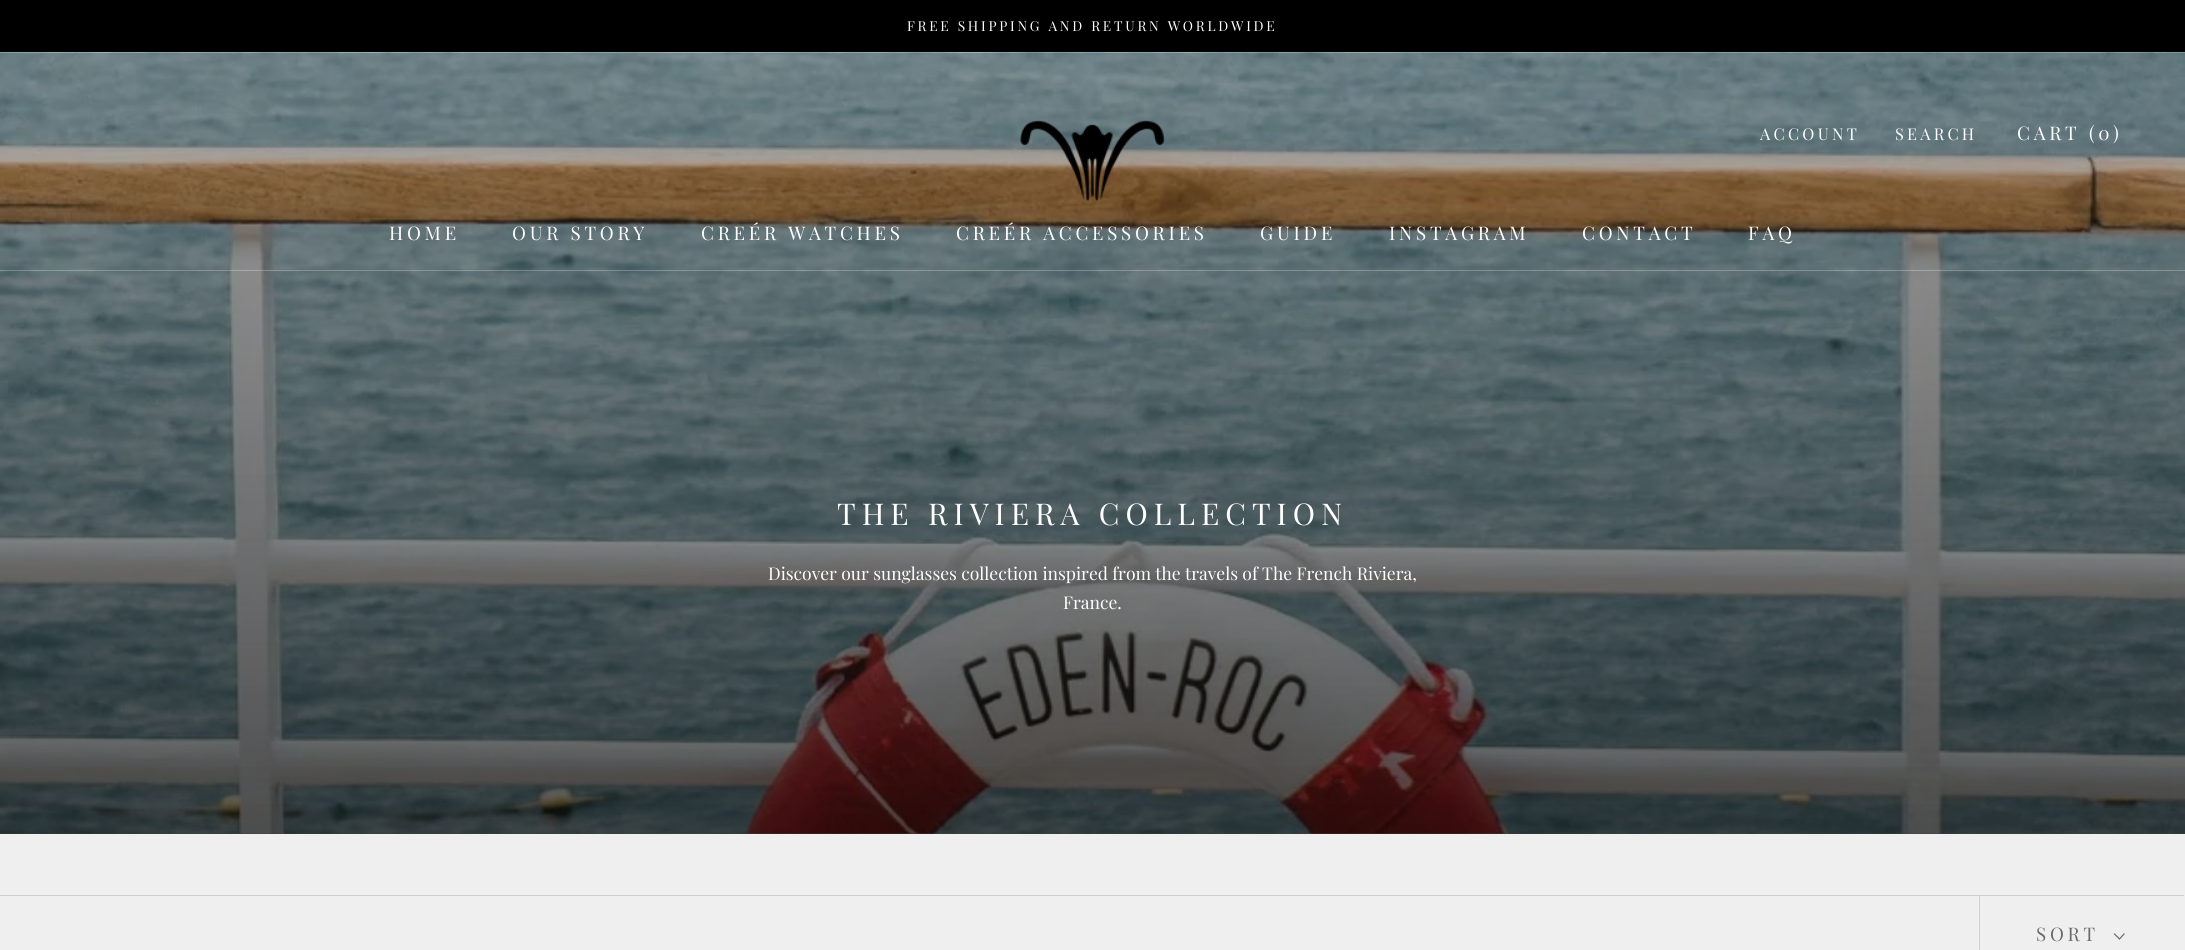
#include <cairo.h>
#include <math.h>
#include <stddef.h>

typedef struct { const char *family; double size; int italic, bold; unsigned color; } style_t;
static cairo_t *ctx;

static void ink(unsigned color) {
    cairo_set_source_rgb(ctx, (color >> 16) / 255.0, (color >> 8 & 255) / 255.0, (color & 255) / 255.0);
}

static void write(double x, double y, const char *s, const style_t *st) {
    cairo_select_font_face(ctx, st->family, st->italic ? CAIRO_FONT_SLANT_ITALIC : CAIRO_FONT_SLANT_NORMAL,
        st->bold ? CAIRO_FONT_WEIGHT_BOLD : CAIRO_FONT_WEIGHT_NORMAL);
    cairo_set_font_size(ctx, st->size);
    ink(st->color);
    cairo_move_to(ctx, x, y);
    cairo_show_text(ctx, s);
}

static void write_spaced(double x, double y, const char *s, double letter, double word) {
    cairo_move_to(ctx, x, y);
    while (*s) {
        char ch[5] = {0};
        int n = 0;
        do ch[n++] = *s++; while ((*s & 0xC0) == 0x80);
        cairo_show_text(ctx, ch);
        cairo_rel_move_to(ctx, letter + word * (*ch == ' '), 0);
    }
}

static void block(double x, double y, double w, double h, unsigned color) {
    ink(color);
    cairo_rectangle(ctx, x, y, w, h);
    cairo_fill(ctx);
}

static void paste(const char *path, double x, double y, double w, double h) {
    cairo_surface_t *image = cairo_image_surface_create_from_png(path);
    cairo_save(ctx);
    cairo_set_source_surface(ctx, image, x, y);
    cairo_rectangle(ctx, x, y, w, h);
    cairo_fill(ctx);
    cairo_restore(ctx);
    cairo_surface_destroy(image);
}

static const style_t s1 = {"Playfair Display", 17.5, 0, 0, 0xffffff};

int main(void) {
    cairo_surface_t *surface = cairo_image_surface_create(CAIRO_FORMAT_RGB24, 2185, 950);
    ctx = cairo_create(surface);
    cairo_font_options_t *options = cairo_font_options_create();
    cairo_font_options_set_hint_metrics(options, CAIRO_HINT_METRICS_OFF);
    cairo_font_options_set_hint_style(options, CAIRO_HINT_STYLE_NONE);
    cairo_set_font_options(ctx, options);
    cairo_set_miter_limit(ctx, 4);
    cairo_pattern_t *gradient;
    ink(0xefefef);
    cairo_paint(ctx);
    block(0, 0, 2185, 52, 0x000000);
    cairo_select_font_face(ctx, "Playfair Display", CAIRO_FONT_SLANT_NORMAL, CAIRO_FONT_WEIGHT_NORMAL);
    cairo_set_font_size(ctx, 13.75);
    ink(0xffffff);
    write_spaced(907, 31, "FREE SHIPPING AND RETURN WORLDWIDE", 2.75, 0);
    block(0, 833, 2185, 1, 0xaeb7bb);
    paste("pic2.png", 0, 52, 2185, 782);
    gradient = cairo_pattern_create_linear(1093, 834, 1093, -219);
    cairo_pattern_add_color_stop_rgba(gradient, 0, 0.016, 0.016, 0.016, 0.65);
    cairo_pattern_add_color_stop_rgba(gradient, 1, 0.212, 0.212, 0.212, 0.2);
    cairo_set_source(ctx, gradient);
    cairo_pattern_destroy(gradient);
    cairo_rectangle(ctx, 0, 53, 2185, 781);
    cairo_fill(ctx);
    cairo_set_source_rgba(ctx, 1, 1, 1, 0.25);
    cairo_rectangle(ctx, 0, 270, 2185, 1);
    cairo_fill(ctx);
    paste("pic1.png", 1020, 120, 145, 82);
    cairo_set_font_size(ctx, 16.25);
    ink(0xffffff);
    write_spaced(1760, 140, "ACCOUNT", 3.25, 0);
    write_spaced(1895, 140, "SEARCH", 3.25, 0);
    cairo_set_font_size(ctx, 18.75);
    write_spaced(2017, 140, "CART (0)", 3.75, 0);
    write_spaced(389, 240, "HOME", 3.75, 0);
    write_spaced(512, 240, "OUR STORY", 3.75, 0);
    write_spaced(701, 240, "CREÉR WATCHES", 3.75, 0);
    write_spaced(956, 240, "CREÉR ACCESSORIES", 3.75, 0);
    write_spaced(1260, 240, "GUIDE", 3.75, 0);
    write_spaced(1389, 240, "INSTAGRAM", 3.75, 0);
    write_spaced(1582, 240, "CONTACT", 3.75, 0);
    write_spaced(1748, 240, "FAQ", 3.75, 0);
    cairo_set_font_size(ctx, 30);
    write_spaced(837, 525, "THE RIVIERA COLLECTION", 6, 0);
    write(768, 580, "Discover our sunglasses collection inspired from the travels of The French Riviera,", &s1);
    write(1063, 609, "France.", &s1);
    ink(0xcfcfcf);
    cairo_new_path(ctx);
    cairo_move_to(ctx, -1, 895);
    cairo_line_to(ctx, -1, 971);
    cairo_line_to(ctx, 0, 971);
    cairo_line_to(ctx, 0, 896);
    cairo_line_to(ctx, 2184, 896);
    cairo_line_to(ctx, 2184, 895);
    cairo_close_path(ctx);
    cairo_fill(ctx);
    block(1979, 896, 1, 54, 0xcfcfcf);
    cairo_set_font_size(ctx, 18.75);
    ink(0x6a6a6a);
    write_spaced(2036, 941, "SORT", 3.75, 0);
    cairo_new_path(ctx);
    cairo_move_to(ctx, 2124, 934);
    cairo_line_to(ctx, 2119.5, 939);
    cairo_line_to(ctx, 2114.5, 934);
    cairo_set_line_width(ctx, 1.2);
    cairo_set_line_cap(ctx, CAIRO_LINE_CAP_SQUARE);
    cairo_stroke(ctx);
    cairo_surface_write_to_png(surface, "screenshot.png");
    cairo_font_options_destroy(options);
    cairo_destroy(ctx);
    cairo_surface_destroy(surface);
    return 0;
}
